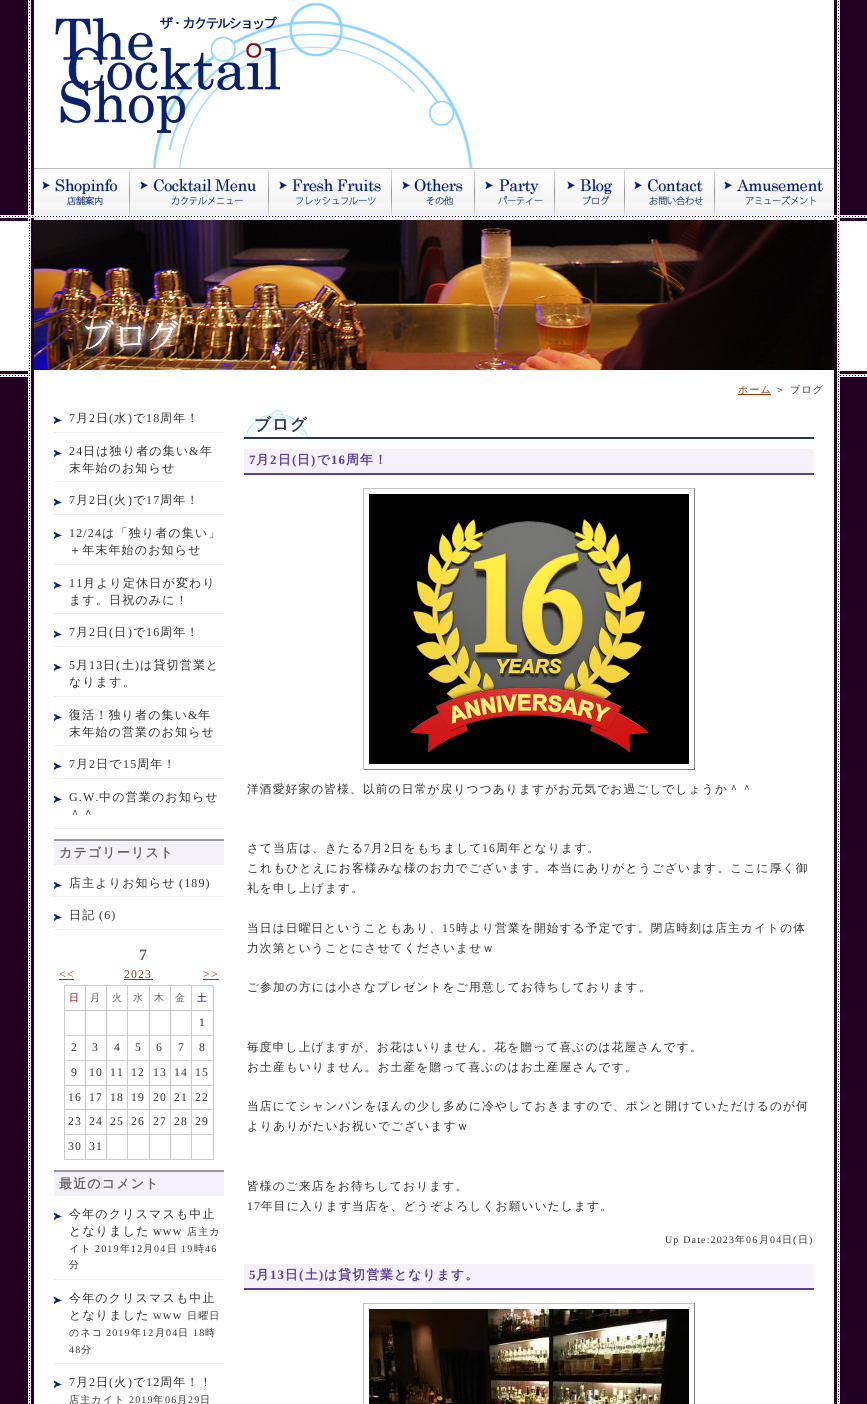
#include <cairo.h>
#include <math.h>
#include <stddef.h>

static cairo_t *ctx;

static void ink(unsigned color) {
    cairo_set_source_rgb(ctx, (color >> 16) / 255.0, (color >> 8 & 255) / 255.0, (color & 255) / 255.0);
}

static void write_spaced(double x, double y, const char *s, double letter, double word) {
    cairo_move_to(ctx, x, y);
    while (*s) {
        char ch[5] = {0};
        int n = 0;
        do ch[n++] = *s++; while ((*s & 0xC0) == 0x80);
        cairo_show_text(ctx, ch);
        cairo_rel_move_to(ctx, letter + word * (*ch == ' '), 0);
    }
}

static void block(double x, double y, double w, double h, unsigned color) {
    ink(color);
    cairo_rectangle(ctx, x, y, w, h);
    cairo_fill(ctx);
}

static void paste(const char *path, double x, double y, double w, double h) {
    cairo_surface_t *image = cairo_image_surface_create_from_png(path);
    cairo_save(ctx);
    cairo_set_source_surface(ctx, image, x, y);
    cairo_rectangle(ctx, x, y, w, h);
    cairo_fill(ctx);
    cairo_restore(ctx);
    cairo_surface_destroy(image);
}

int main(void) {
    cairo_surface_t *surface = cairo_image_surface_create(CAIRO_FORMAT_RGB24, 867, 1404);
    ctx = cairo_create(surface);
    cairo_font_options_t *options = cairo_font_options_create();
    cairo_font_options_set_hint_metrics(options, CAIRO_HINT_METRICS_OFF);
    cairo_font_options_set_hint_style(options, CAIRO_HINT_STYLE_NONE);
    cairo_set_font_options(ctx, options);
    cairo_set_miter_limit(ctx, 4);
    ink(0x220022);
    cairo_paint(ctx);
    paste("pic1.png", 0, 215, 867, 162);
    paste("pic2.png", 28, 0, 812, 1404);
    paste("pic3.png", 28, 1, 812, 219);
    paste("pic4.png", 55, 3, 418, 165);
    paste("pic5.png", 34, 168, 96, 48);
    paste("pic6.png", 130, 168, 139, 48);
    paste("pic7.png", 269, 168, 123, 48);
    paste("pic8.png", 392, 168, 83, 48);
    paste("pic9.png", 475, 168, 80, 48);
    paste("pic10.png", 555, 168, 70, 48);
    paste("pic11.png", 625, 168, 90, 48);
    paste("pic12.png", 715, 168, 119, 48);
    paste("pic13.png", 34, 220, 800, 150);
    cairo_select_font_face(ctx, "WenQuanYi Zen Hei Medium", CAIRO_FONT_SLANT_NORMAL, CAIRO_FONT_WEIGHT_NORMAL);
    cairo_set_font_size(ctx, 10);
    ink(0x993300);
    write_spaced(738, 393, "ホーム", 1.15, 0);
    block(738, 394, 33, 1, 0x993300);
    ink(0x333333);
    write_spaced(775, 393, "＞", 1.15, 0);
    write_spaced(790, 393, "ブログ", 1.15, 0);
    paste("pic14.png", 54, 417, 8, 7);
    block(54, 432, 170, 1, 0xefefef);
    cairo_select_font_face(ctx, "Liberation Serif", CAIRO_FONT_SLANT_NORMAL, CAIRO_FONT_WEIGHT_NORMAL);
    cairo_set_font_size(ctx, 12);
    ink(0x333333);
    write_spaced(69, 422, "7", 1.15, 0);
    cairo_select_font_face(ctx, "WenQuanYi Zen Hei Medium", CAIRO_FONT_SLANT_NORMAL, CAIRO_FONT_WEIGHT_NORMAL);
    write_spaced(76, 422, "月", 1.15, 0);
    cairo_select_font_face(ctx, "Liberation Serif", CAIRO_FONT_SLANT_NORMAL, CAIRO_FONT_WEIGHT_NORMAL);
    write_spaced(89, 422, "2", 1.15, 0);
    cairo_select_font_face(ctx, "WenQuanYi Zen Hei Medium", CAIRO_FONT_SLANT_NORMAL, CAIRO_FONT_WEIGHT_NORMAL);
    write_spaced(96, 422, "日", 1.15, 0);
    cairo_select_font_face(ctx, "Liberation Serif", CAIRO_FONT_SLANT_NORMAL, CAIRO_FONT_WEIGHT_NORMAL);
    write_spaced(109, 422, "(", 1.15, 0);
    cairo_select_font_face(ctx, "WenQuanYi Zen Hei Medium", CAIRO_FONT_SLANT_NORMAL, CAIRO_FONT_WEIGHT_NORMAL);
    write_spaced(114, 422, "水", 1.15, 0);
    cairo_select_font_face(ctx, "Liberation Serif", CAIRO_FONT_SLANT_NORMAL, CAIRO_FONT_WEIGHT_NORMAL);
    write_spaced(128, 422, ")", 1.15, 0);
    cairo_select_font_face(ctx, "WenQuanYi Zen Hei Medium", CAIRO_FONT_SLANT_NORMAL, CAIRO_FONT_WEIGHT_NORMAL);
    write_spaced(133, 422, "で", 1.15, 0);
    cairo_select_font_face(ctx, "Liberation Serif", CAIRO_FONT_SLANT_NORMAL, CAIRO_FONT_WEIGHT_NORMAL);
    write_spaced(146, 422, "18", 1.15, 0);
    cairo_select_font_face(ctx, "WenQuanYi Zen Hei Medium", CAIRO_FONT_SLANT_NORMAL, CAIRO_FONT_WEIGHT_NORMAL);
    write_spaced(160, 422, "周年！", 1.15, 0);
    paste("pic14.png", 54, 450, 8, 7);
    block(54, 481, 170, 1, 0xefefef);
    cairo_select_font_face(ctx, "Liberation Serif", CAIRO_FONT_SLANT_NORMAL, CAIRO_FONT_WEIGHT_NORMAL);
    ink(0x333333);
    write_spaced(69, 455, "24", 1.15, 0);
    cairo_select_font_face(ctx, "WenQuanYi Zen Hei Medium", CAIRO_FONT_SLANT_NORMAL, CAIRO_FONT_WEIGHT_NORMAL);
    write_spaced(83, 455, "日は独り者の集い", 1.15, 0);
    cairo_select_font_face(ctx, "Liberation Serif", CAIRO_FONT_SLANT_NORMAL, CAIRO_FONT_WEIGHT_NORMAL);
    write_spaced(189, 455, "&", 1.15, 0);
    cairo_select_font_face(ctx, "WenQuanYi Zen Hei Medium", CAIRO_FONT_SLANT_NORMAL, CAIRO_FONT_WEIGHT_NORMAL);
    write_spaced(200, 455, "年", 1.15, 0);
    write_spaced(69, 472, "末年始のお知らせ", 1.15, 0);
    paste("pic14.png", 54, 499, 8, 7);
    block(54, 514, 170, 1, 0xefefef);
    cairo_select_font_face(ctx, "Liberation Serif", CAIRO_FONT_SLANT_NORMAL, CAIRO_FONT_WEIGHT_NORMAL);
    ink(0x333333);
    write_spaced(69, 504, "7", 1.15, 0);
    cairo_select_font_face(ctx, "WenQuanYi Zen Hei Medium", CAIRO_FONT_SLANT_NORMAL, CAIRO_FONT_WEIGHT_NORMAL);
    write_spaced(76, 504, "月", 1.15, 0);
    cairo_select_font_face(ctx, "Liberation Serif", CAIRO_FONT_SLANT_NORMAL, CAIRO_FONT_WEIGHT_NORMAL);
    write_spaced(89, 504, "2", 1.15, 0);
    cairo_select_font_face(ctx, "WenQuanYi Zen Hei Medium", CAIRO_FONT_SLANT_NORMAL, CAIRO_FONT_WEIGHT_NORMAL);
    write_spaced(96, 504, "日", 1.15, 0);
    cairo_select_font_face(ctx, "Liberation Serif", CAIRO_FONT_SLANT_NORMAL, CAIRO_FONT_WEIGHT_NORMAL);
    write_spaced(109, 504, "(", 1.15, 0);
    cairo_select_font_face(ctx, "WenQuanYi Zen Hei Medium", CAIRO_FONT_SLANT_NORMAL, CAIRO_FONT_WEIGHT_NORMAL);
    write_spaced(114, 504, "火", 1.15, 0);
    cairo_select_font_face(ctx, "Liberation Serif", CAIRO_FONT_SLANT_NORMAL, CAIRO_FONT_WEIGHT_NORMAL);
    write_spaced(128, 504, ")", 1.15, 0);
    cairo_select_font_face(ctx, "WenQuanYi Zen Hei Medium", CAIRO_FONT_SLANT_NORMAL, CAIRO_FONT_WEIGHT_NORMAL);
    write_spaced(133, 504, "で", 1.15, 0);
    cairo_select_font_face(ctx, "Liberation Serif", CAIRO_FONT_SLANT_NORMAL, CAIRO_FONT_WEIGHT_NORMAL);
    write_spaced(146, 504, "17", 1.15, 0);
    cairo_select_font_face(ctx, "WenQuanYi Zen Hei Medium", CAIRO_FONT_SLANT_NORMAL, CAIRO_FONT_WEIGHT_NORMAL);
    write_spaced(160, 504, "周年！", 1.15, 0);
    paste("pic14.png", 54, 532, 8, 7);
    block(54, 564, 170, 1, 0xefefef);
    cairo_select_font_face(ctx, "Liberation Serif", CAIRO_FONT_SLANT_NORMAL, CAIRO_FONT_WEIGHT_NORMAL);
    ink(0x333333);
    write_spaced(69, 537, "12/24", 1.15, 0);
    cairo_select_font_face(ctx, "WenQuanYi Zen Hei Medium", CAIRO_FONT_SLANT_NORMAL, CAIRO_FONT_WEIGHT_NORMAL);
    write_spaced(102, 537, "は「独り者の集い」", 1.15, 0);
    write_spaced(69, 554, "＋年末年始のお知らせ", 1.15, 0);
    paste("pic14.png", 54, 582, 8, 7);
    block(54, 613, 170, 1, 0xefefef);
    cairo_select_font_face(ctx, "Liberation Serif", CAIRO_FONT_SLANT_NORMAL, CAIRO_FONT_WEIGHT_NORMAL);
    ink(0x333333);
    write_spaced(69, 587, "11", 1.15, 0);
    cairo_select_font_face(ctx, "WenQuanYi Zen Hei Medium", CAIRO_FONT_SLANT_NORMAL, CAIRO_FONT_WEIGHT_NORMAL);
    write_spaced(83, 587, "月より定休日が変わり", 1.15, 0);
    write_spaced(69, 604, "ます。日祝のみに！", 1.15, 0);
    paste("pic14.png", 54, 631, 8, 7);
    block(54, 646, 170, 1, 0xefefef);
    cairo_select_font_face(ctx, "Liberation Serif", CAIRO_FONT_SLANT_NORMAL, CAIRO_FONT_WEIGHT_NORMAL);
    ink(0x333333);
    write_spaced(69, 636, "7", 1.15, 0);
    cairo_select_font_face(ctx, "WenQuanYi Zen Hei Medium", CAIRO_FONT_SLANT_NORMAL, CAIRO_FONT_WEIGHT_NORMAL);
    write_spaced(76, 636, "月", 1.15, 0);
    cairo_select_font_face(ctx, "Liberation Serif", CAIRO_FONT_SLANT_NORMAL, CAIRO_FONT_WEIGHT_NORMAL);
    write_spaced(89, 636, "2", 1.15, 0);
    cairo_select_font_face(ctx, "WenQuanYi Zen Hei Medium", CAIRO_FONT_SLANT_NORMAL, CAIRO_FONT_WEIGHT_NORMAL);
    write_spaced(96, 636, "日", 1.15, 0);
    cairo_select_font_face(ctx, "Liberation Serif", CAIRO_FONT_SLANT_NORMAL, CAIRO_FONT_WEIGHT_NORMAL);
    write_spaced(109, 636, "(", 1.15, 0);
    cairo_select_font_face(ctx, "WenQuanYi Zen Hei Medium", CAIRO_FONT_SLANT_NORMAL, CAIRO_FONT_WEIGHT_NORMAL);
    write_spaced(114, 636, "日", 1.15, 0);
    cairo_select_font_face(ctx, "Liberation Serif", CAIRO_FONT_SLANT_NORMAL, CAIRO_FONT_WEIGHT_NORMAL);
    write_spaced(128, 636, ")", 1.15, 0);
    cairo_select_font_face(ctx, "WenQuanYi Zen Hei Medium", CAIRO_FONT_SLANT_NORMAL, CAIRO_FONT_WEIGHT_NORMAL);
    write_spaced(133, 636, "で", 1.15, 0);
    cairo_select_font_face(ctx, "Liberation Serif", CAIRO_FONT_SLANT_NORMAL, CAIRO_FONT_WEIGHT_NORMAL);
    write_spaced(146, 636, "16", 1.15, 0);
    cairo_select_font_face(ctx, "WenQuanYi Zen Hei Medium", CAIRO_FONT_SLANT_NORMAL, CAIRO_FONT_WEIGHT_NORMAL);
    write_spaced(160, 636, "周年！", 1.15, 0);
    paste("pic14.png", 54, 664, 8, 7);
    block(54, 696, 170, 1, 0xefefef);
    cairo_select_font_face(ctx, "Liberation Serif", CAIRO_FONT_SLANT_NORMAL, CAIRO_FONT_WEIGHT_NORMAL);
    ink(0x333333);
    write_spaced(69, 669, "5", 1.15, 0);
    cairo_select_font_face(ctx, "WenQuanYi Zen Hei Medium", CAIRO_FONT_SLANT_NORMAL, CAIRO_FONT_WEIGHT_NORMAL);
    write_spaced(76, 669, "月", 1.15, 0);
    cairo_select_font_face(ctx, "Liberation Serif", CAIRO_FONT_SLANT_NORMAL, CAIRO_FONT_WEIGHT_NORMAL);
    write_spaced(89, 669, "13", 1.15, 0);
    cairo_select_font_face(ctx, "WenQuanYi Zen Hei Medium", CAIRO_FONT_SLANT_NORMAL, CAIRO_FONT_WEIGHT_NORMAL);
    write_spaced(103, 669, "日", 1.15, 0);
    cairo_select_font_face(ctx, "Liberation Serif", CAIRO_FONT_SLANT_NORMAL, CAIRO_FONT_WEIGHT_NORMAL);
    write_spaced(116, 669, "(", 1.15, 0);
    cairo_select_font_face(ctx, "WenQuanYi Zen Hei Medium", CAIRO_FONT_SLANT_NORMAL, CAIRO_FONT_WEIGHT_NORMAL);
    write_spaced(122, 669, "土", 1.15, 0);
    cairo_select_font_face(ctx, "Liberation Serif", CAIRO_FONT_SLANT_NORMAL, CAIRO_FONT_WEIGHT_NORMAL);
    write_spaced(135, 669, ")", 1.15, 0);
    cairo_select_font_face(ctx, "WenQuanYi Zen Hei Medium", CAIRO_FONT_SLANT_NORMAL, CAIRO_FONT_WEIGHT_NORMAL);
    write_spaced(140, 669, "は貸切営業と", 1.15, 0);
    write_spaced(69, 686, "なります。", 1.15, 0);
    paste("pic14.png", 54, 714, 8, 7);
    block(54, 745, 170, 1, 0xefefef);
    ink(0x333333);
    write_spaced(69, 719, "復活！独り者の集い", 1.15, 0);
    cairo_select_font_face(ctx, "Liberation Serif", CAIRO_FONT_SLANT_NORMAL, CAIRO_FONT_WEIGHT_NORMAL);
    write_spaced(188, 719, "&", 1.15, 0);
    cairo_select_font_face(ctx, "WenQuanYi Zen Hei Medium", CAIRO_FONT_SLANT_NORMAL, CAIRO_FONT_WEIGHT_NORMAL);
    write_spaced(198, 719, "年", 1.15, 0);
    write_spaced(69, 736, "末年始の営業のお知らせ", 1.15, 0);
    paste("pic14.png", 54, 763, 8, 7);
    block(54, 778, 170, 1, 0xefefef);
    cairo_select_font_face(ctx, "Liberation Serif", CAIRO_FONT_SLANT_NORMAL, CAIRO_FONT_WEIGHT_NORMAL);
    ink(0x333333);
    write_spaced(69, 768, "7", 1.15, 0);
    cairo_select_font_face(ctx, "WenQuanYi Zen Hei Medium", CAIRO_FONT_SLANT_NORMAL, CAIRO_FONT_WEIGHT_NORMAL);
    write_spaced(76, 768, "月", 1.15, 0);
    cairo_select_font_face(ctx, "Liberation Serif", CAIRO_FONT_SLANT_NORMAL, CAIRO_FONT_WEIGHT_NORMAL);
    write_spaced(89, 768, "2", 1.15, 0);
    cairo_select_font_face(ctx, "WenQuanYi Zen Hei Medium", CAIRO_FONT_SLANT_NORMAL, CAIRO_FONT_WEIGHT_NORMAL);
    write_spaced(96, 768, "日で", 1.15, 0);
    cairo_select_font_face(ctx, "Liberation Serif", CAIRO_FONT_SLANT_NORMAL, CAIRO_FONT_WEIGHT_NORMAL);
    write_spaced(123, 768, "15", 1.15, 0);
    cairo_select_font_face(ctx, "WenQuanYi Zen Hei Medium", CAIRO_FONT_SLANT_NORMAL, CAIRO_FONT_WEIGHT_NORMAL);
    write_spaced(137, 768, "周年！", 1.15, 0);
    paste("pic14.png", 54, 796, 8, 7);
    block(54, 828, 170, 1, 0xefefef);
    cairo_select_font_face(ctx, "Liberation Serif", CAIRO_FONT_SLANT_NORMAL, CAIRO_FONT_WEIGHT_NORMAL);
    ink(0x333333);
    write_spaced(69, 801, "G.W.", 1.15, 0);
    cairo_select_font_face(ctx, "WenQuanYi Zen Hei Medium", CAIRO_FONT_SLANT_NORMAL, CAIRO_FONT_WEIGHT_NORMAL);
    write_spaced(99, 801, "中の営業のお知らせ", 1.15, 0);
    write_spaced(69, 818, "＾＾", 1.15, 0);
    block(54, 841, 170, 24, 0xf4f1fa);
    block(54, 839, 170, 2, 0x999999);
    cairo_select_font_face(ctx, "WenQuanYi Zen Hei", CAIRO_FONT_SLANT_NORMAL, CAIRO_FONT_WEIGHT_BOLD);
    cairo_set_font_size(ctx, 13);
    ink(0x666666);
    write_spaced(59, 857, "カテゴリーリスト", 1.15, 0);
    paste("pic14.png", 54, 882, 8, 7);
    block(54, 896, 170, 1, 0xefefef);
    cairo_select_font_face(ctx, "WenQuanYi Zen Hei Medium", CAIRO_FONT_SLANT_NORMAL, CAIRO_FONT_WEIGHT_NORMAL);
    cairo_set_font_size(ctx, 12);
    ink(0x333333);
    write_spaced(69, 887, "店主よりお知らせ", 1.15, 0);
    cairo_select_font_face(ctx, "Liberation Serif", CAIRO_FONT_SLANT_NORMAL, CAIRO_FONT_WEIGHT_NORMAL);
    write_spaced(179, 887, "(189)", 1.15, 0);
    paste("pic14.png", 54, 914, 8, 7);
    block(54, 929, 170, 1, 0xefefef);
    cairo_select_font_face(ctx, "WenQuanYi Zen Hei Medium", CAIRO_FONT_SLANT_NORMAL, CAIRO_FONT_WEIGHT_NORMAL);
    ink(0x333333);
    write_spaced(69, 919, "日記", 1.15, 0);
    cairo_select_font_face(ctx, "Liberation Serif", CAIRO_FONT_SLANT_NORMAL, CAIRO_FONT_WEIGHT_NORMAL);
    write_spaced(99, 919, "(6)", 1.15, 0);
    cairo_select_font_face(ctx, "Liberation Serif", CAIRO_FONT_SLANT_NORMAL, CAIRO_FONT_WEIGHT_BOLD);
    cairo_set_font_size(ctx, 16);
    ink(0x666666);
    write_spaced(139, 960, "7", 1.15, 0);
    cairo_select_font_face(ctx, "Liberation Serif", CAIRO_FONT_SLANT_NORMAL, CAIRO_FONT_WEIGHT_NORMAL);
    cairo_set_font_size(ctx, 12);
    ink(0x993300);
    write_spaced(59, 978, "<<", 1.15, 0);
    block(59, 979, 15, 1, 0x993300);
    cairo_set_font_size(ctx, 11.7);
    write_spaced(124, 978, "2023", 1.15, 0);
    block(124, 979, 29, 1, 0x993300);
    cairo_set_font_size(ctx, 12);
    write_spaced(203, 978, ">>", 1.15, 0);
    block(203, 979, 16, 1, 0x993300);
    block(64, 985, 150, 1, 0xcccccc);
    block(213, 985, 1, 175, 0xcccccc);
    block(64, 1159, 150, 1, 0xcccccc);
    block(64, 985, 1, 175, 0xcccccc);
    cairo_select_font_face(ctx, "WenQuanYi Zen Hei Medium", CAIRO_FONT_SLANT_NORMAL, CAIRO_FONT_WEIGHT_NORMAL);
    cairo_set_font_size(ctx, 10);
    ink(0x990000);
    write_spaced(69, 1001, "日", 1.15, 0);
    block(191, 1010, 23, 1, 0xcccccc);
    block(191, 1035, 23, 1, 0xcccccc);
    block(191, 1060, 23, 1, 0xcccccc);
    block(191, 1085, 23, 1, 0xcccccc);
    block(191, 1109, 23, 1, 0xcccccc);
    block(191, 1134, 23, 1, 0xcccccc);
    block(191, 1134, 1, 26, 0xcccccc);
    block(170, 1134, 22, 1, 0xcccccc);
    block(191, 1109, 1, 26, 0xcccccc);
    block(170, 1109, 22, 1, 0xcccccc);
    block(191, 1085, 1, 25, 0xcccccc);
    block(170, 1085, 22, 1, 0xcccccc);
    block(191, 1060, 1, 26, 0xcccccc);
    block(170, 1060, 22, 1, 0xcccccc);
    block(191, 1035, 1, 26, 0xcccccc);
    block(170, 1035, 22, 1, 0xcccccc);
    block(191, 1010, 1, 26, 0xcccccc);
    block(170, 1010, 22, 1, 0xcccccc);
    block(170, 1134, 1, 26, 0xcccccc);
    block(149, 1134, 22, 1, 0xcccccc);
    block(170, 1109, 1, 26, 0xcccccc);
    block(149, 1109, 22, 1, 0xcccccc);
    block(170, 1085, 1, 25, 0xcccccc);
    block(149, 1085, 22, 1, 0xcccccc);
    block(170, 1060, 1, 26, 0xcccccc);
    block(149, 1060, 22, 1, 0xcccccc);
    block(170, 1035, 1, 26, 0xcccccc);
    block(149, 1035, 22, 1, 0xcccccc);
    block(170, 1010, 1, 26, 0xcccccc);
    block(149, 1010, 22, 1, 0xcccccc);
    block(149, 1134, 1, 26, 0xcccccc);
    block(127, 1134, 23, 1, 0xcccccc);
    block(149, 1109, 1, 26, 0xcccccc);
    block(127, 1109, 23, 1, 0xcccccc);
    block(149, 1085, 1, 25, 0xcccccc);
    block(127, 1085, 23, 1, 0xcccccc);
    block(149, 1060, 1, 26, 0xcccccc);
    block(127, 1060, 23, 1, 0xcccccc);
    block(149, 1035, 1, 26, 0xcccccc);
    block(127, 1035, 23, 1, 0xcccccc);
    block(149, 1010, 1, 26, 0xcccccc);
    block(127, 1010, 23, 1, 0xcccccc);
    block(127, 1134, 1, 26, 0xcccccc);
    block(106, 1134, 22, 1, 0xcccccc);
    block(127, 1109, 1, 26, 0xcccccc);
    block(106, 1109, 22, 1, 0xcccccc);
    block(127, 1085, 1, 25, 0xcccccc);
    block(106, 1085, 22, 1, 0xcccccc);
    block(127, 1060, 1, 26, 0xcccccc);
    block(106, 1060, 22, 1, 0xcccccc);
    block(127, 1035, 1, 26, 0xcccccc);
    block(106, 1035, 22, 1, 0xcccccc);
    block(127, 1010, 1, 26, 0xcccccc);
    block(106, 1010, 22, 1, 0xcccccc);
    block(106, 1134, 1, 26, 0xcccccc);
    block(85, 1134, 22, 1, 0xcccccc);
    block(106, 1109, 1, 26, 0xcccccc);
    block(85, 1109, 22, 1, 0xcccccc);
    block(106, 1085, 1, 25, 0xcccccc);
    block(85, 1085, 22, 1, 0xcccccc);
    block(106, 1060, 1, 26, 0xcccccc);
    block(85, 1060, 22, 1, 0xcccccc);
    block(106, 1035, 1, 26, 0xcccccc);
    block(85, 1035, 22, 1, 0xcccccc);
    block(106, 1010, 1, 26, 0xcccccc);
    block(85, 1010, 22, 1, 0xcccccc);
    block(85, 1134, 1, 26, 0xcccccc);
    block(64, 1134, 22, 1, 0xcccccc);
    block(85, 1109, 1, 26, 0xcccccc);
    block(64, 1109, 22, 1, 0xcccccc);
    block(85, 1085, 1, 25, 0xcccccc);
    block(64, 1085, 22, 1, 0xcccccc);
    block(85, 1060, 1, 26, 0xcccccc);
    block(64, 1060, 22, 1, 0xcccccc);
    block(85, 1035, 1, 26, 0xcccccc);
    block(64, 1035, 22, 1, 0xcccccc);
    block(85, 1010, 1, 26, 0xcccccc);
    block(64, 1010, 22, 1, 0xcccccc);
    block(85, 985, 1, 26, 0xcccccc);
    ink(0x666666);
    write_spaced(90, 1001, "月", 1.15, 0);
    block(106, 985, 1, 26, 0xcccccc);
    ink(0x666666);
    write_spaced(112, 1001, "火", 1.15, 0);
    block(127, 985, 1, 26, 0xcccccc);
    ink(0x666666);
    write_spaced(133, 1001, "水", 1.15, 0);
    block(149, 985, 1, 26, 0xcccccc);
    ink(0x666666);
    write_spaced(154, 1001, "木", 1.15, 0);
    block(170, 985, 1, 26, 0xcccccc);
    ink(0x666666);
    write_spaced(175, 1001, "金", 1.15, 0);
    block(191, 985, 1, 26, 0xcccccc);
    ink(0x000099);
    write_spaced(197, 1001, "土", 1.15, 0);
    cairo_select_font_face(ctx, "Liberation Serif", CAIRO_FONT_SLANT_NORMAL, CAIRO_FONT_WEIGHT_NORMAL);
    cairo_set_font_size(ctx, 11.7);
    ink(0x333333);
    write_spaced(199, 1026, "1", 1.15, 0);
    write_spaced(71, 1051, "2", 1.15, 0);
    write_spaced(92, 1051, "3", 1.15, 0);
    write_spaced(114, 1051, "4", 1.15, 0);
    write_spaced(135, 1051, "5", 1.15, 0);
    write_spaced(156, 1051, "6", 1.15, 0);
    write_spaced(178, 1051, "7", 1.15, 0);
    write_spaced(199, 1051, "8", 1.15, 0);
    write_spaced(71, 1076, "9", 1.15, 0);
    write_spaced(89, 1076, "10", 1.15, 0);
    write_spaced(110, 1076, "11", 1.15, 0);
    write_spaced(131, 1076, "12", 1.15, 0);
    write_spaced(153, 1076, "13", 1.15, 0);
    write_spaced(174, 1076, "14", 1.15, 0);
    write_spaced(195, 1076, "15", 1.15, 0);
    write_spaced(68, 1101, "16", 1.15, 0);
    write_spaced(89, 1101, "17", 1.15, 0);
    write_spaced(110, 1101, "18", 1.15, 0);
    write_spaced(131, 1101, "19", 1.15, 0);
    write_spaced(153, 1101, "20", 1.15, 0);
    write_spaced(174, 1101, "21", 1.15, 0);
    write_spaced(195, 1101, "22", 1.15, 0);
    write_spaced(68, 1125, "23", 1.15, 0);
    write_spaced(89, 1125, "24", 1.15, 0);
    write_spaced(110, 1125, "25", 1.15, 0);
    write_spaced(131, 1125, "26", 1.15, 0);
    write_spaced(153, 1125, "27", 1.15, 0);
    write_spaced(174, 1125, "28", 1.15, 0);
    write_spaced(195, 1125, "29", 1.15, 0);
    write_spaced(68, 1150, "30", 1.15, 0);
    write_spaced(89, 1150, "31", 1.15, 0);
    block(54, 1172, 170, 24, 0xf4f1fa);
    block(54, 1170, 170, 2, 0x999999);
    cairo_select_font_face(ctx, "WenQuanYi Zen Hei", CAIRO_FONT_SLANT_NORMAL, CAIRO_FONT_WEIGHT_BOLD);
    cairo_set_font_size(ctx, 13);
    ink(0x666666);
    write_spaced(59, 1188, "最近のコメント", 1.15, 0);
    paste("pic14.png", 54, 1213, 8, 7);
    block(54, 1279, 170, 1, 0xefefef);
    cairo_select_font_face(ctx, "WenQuanYi Zen Hei Medium", CAIRO_FONT_SLANT_NORMAL, CAIRO_FONT_WEIGHT_NORMAL);
    cairo_set_font_size(ctx, 12);
    ink(0x333333);
    write_spaced(69, 1218, "今年のクリスマスも中止", 1.15, 0);
    write_spaced(69, 1235, "となりました", 1.15, 0);
    cairo_select_font_face(ctx, "Liberation Serif", CAIRO_FONT_SLANT_NORMAL, CAIRO_FONT_WEIGHT_NORMAL);
    write_spaced(153, 1235, "www", 1.15, 0);
    cairo_select_font_face(ctx, "WenQuanYi Zen Hei Medium", CAIRO_FONT_SLANT_NORMAL, CAIRO_FONT_WEIGHT_NORMAL);
    cairo_set_font_size(ctx, 10);
    write_spaced(187, 1235, "店主カ", 1.15, 0);
    write_spaced(69, 1252, "イト", 1.15, 0);
    cairo_select_font_face(ctx, "Liberation Serif", CAIRO_FONT_SLANT_NORMAL, CAIRO_FONT_WEIGHT_NORMAL);
    write_spaced(95, 1252, "2019", 1.15, 0);
    cairo_select_font_face(ctx, "WenQuanYi Zen Hei Medium", CAIRO_FONT_SLANT_NORMAL, CAIRO_FONT_WEIGHT_NORMAL);
    write_spaced(120, 1252, "年", 1.15, 0);
    cairo_select_font_face(ctx, "Liberation Serif", CAIRO_FONT_SLANT_NORMAL, CAIRO_FONT_WEIGHT_NORMAL);
    write_spaced(131, 1252, "12", 1.15, 0);
    cairo_select_font_face(ctx, "WenQuanYi Zen Hei Medium", CAIRO_FONT_SLANT_NORMAL, CAIRO_FONT_WEIGHT_NORMAL);
    write_spaced(143, 1252, "月", 1.15, 0);
    cairo_select_font_face(ctx, "Liberation Serif", CAIRO_FONT_SLANT_NORMAL, CAIRO_FONT_WEIGHT_NORMAL);
    write_spaced(154, 1252, "04", 1.15, 0);
    cairo_select_font_face(ctx, "WenQuanYi Zen Hei Medium", CAIRO_FONT_SLANT_NORMAL, CAIRO_FONT_WEIGHT_NORMAL);
    write_spaced(167, 1252, "日", 1.15, 0);
    cairo_select_font_face(ctx, "Liberation Serif", CAIRO_FONT_SLANT_NORMAL, CAIRO_FONT_WEIGHT_NORMAL);
    write_spaced(181, 1252, "19", 1.15, 0);
    cairo_select_font_face(ctx, "WenQuanYi Zen Hei Medium", CAIRO_FONT_SLANT_NORMAL, CAIRO_FONT_WEIGHT_NORMAL);
    write_spaced(194, 1252, "時", 1.15, 0);
    cairo_select_font_face(ctx, "Liberation Serif", CAIRO_FONT_SLANT_NORMAL, CAIRO_FONT_WEIGHT_NORMAL);
    write_spaced(205, 1252, "46", 1.15, 0);
    cairo_select_font_face(ctx, "WenQuanYi Zen Hei Medium", CAIRO_FONT_SLANT_NORMAL, CAIRO_FONT_WEIGHT_NORMAL);
    write_spaced(69, 1268, "分", 1.15, 0);
    paste("pic14.png", 54, 1297, 8, 7);
    block(54, 1363, 170, 1, 0xefefef);
    cairo_set_font_size(ctx, 12);
    ink(0x333333);
    write_spaced(69, 1302, "今年のクリスマスも中止", 1.15, 0);
    write_spaced(69, 1319, "となりました", 1.15, 0);
    cairo_select_font_face(ctx, "Liberation Serif", CAIRO_FONT_SLANT_NORMAL, CAIRO_FONT_WEIGHT_NORMAL);
    write_spaced(153, 1319, "www", 1.15, 0);
    cairo_select_font_face(ctx, "WenQuanYi Zen Hei Medium", CAIRO_FONT_SLANT_NORMAL, CAIRO_FONT_WEIGHT_NORMAL);
    cairo_set_font_size(ctx, 10);
    write_spaced(187, 1319, "日曜日", 1.15, 0);
    write_spaced(69, 1336, "のネコ", 1.15, 0);
    cairo_select_font_face(ctx, "Liberation Serif", CAIRO_FONT_SLANT_NORMAL, CAIRO_FONT_WEIGHT_NORMAL);
    write_spaced(106, 1336, "2019", 1.15, 0);
    cairo_select_font_face(ctx, "WenQuanYi Zen Hei Medium", CAIRO_FONT_SLANT_NORMAL, CAIRO_FONT_WEIGHT_NORMAL);
    write_spaced(131, 1336, "年", 1.15, 0);
    cairo_select_font_face(ctx, "Liberation Serif", CAIRO_FONT_SLANT_NORMAL, CAIRO_FONT_WEIGHT_NORMAL);
    write_spaced(142, 1336, "12", 1.15, 0);
    cairo_select_font_face(ctx, "WenQuanYi Zen Hei Medium", CAIRO_FONT_SLANT_NORMAL, CAIRO_FONT_WEIGHT_NORMAL);
    write_spaced(155, 1336, "月", 1.15, 0);
    cairo_select_font_face(ctx, "Liberation Serif", CAIRO_FONT_SLANT_NORMAL, CAIRO_FONT_WEIGHT_NORMAL);
    write_spaced(166, 1336, "04", 1.15, 0);
    cairo_select_font_face(ctx, "WenQuanYi Zen Hei Medium", CAIRO_FONT_SLANT_NORMAL, CAIRO_FONT_WEIGHT_NORMAL);
    write_spaced(178, 1336, "日", 1.15, 0);
    cairo_select_font_face(ctx, "Liberation Serif", CAIRO_FONT_SLANT_NORMAL, CAIRO_FONT_WEIGHT_NORMAL);
    write_spaced(193, 1336, "18", 1.15, 0);
    cairo_select_font_face(ctx, "WenQuanYi Zen Hei Medium", CAIRO_FONT_SLANT_NORMAL, CAIRO_FONT_WEIGHT_NORMAL);
    write_spaced(205, 1336, "時", 1.15, 0);
    cairo_select_font_face(ctx, "Liberation Serif", CAIRO_FONT_SLANT_NORMAL, CAIRO_FONT_WEIGHT_NORMAL);
    write_spaced(69, 1353, "48", 1.15, 0);
    cairo_select_font_face(ctx, "WenQuanYi Zen Hei Medium", CAIRO_FONT_SLANT_NORMAL, CAIRO_FONT_WEIGHT_NORMAL);
    write_spaced(81, 1353, "分", 1.15, 0);
    paste("pic14.png", 54, 1381, 8, 7);
    cairo_select_font_face(ctx, "Liberation Serif", CAIRO_FONT_SLANT_NORMAL, CAIRO_FONT_WEIGHT_NORMAL);
    cairo_set_font_size(ctx, 12);
    write_spaced(69, 1386, "7", 1.15, 0);
    cairo_select_font_face(ctx, "WenQuanYi Zen Hei Medium", CAIRO_FONT_SLANT_NORMAL, CAIRO_FONT_WEIGHT_NORMAL);
    write_spaced(76, 1386, "月", 1.15, 0);
    cairo_select_font_face(ctx, "Liberation Serif", CAIRO_FONT_SLANT_NORMAL, CAIRO_FONT_WEIGHT_NORMAL);
    write_spaced(89, 1386, "2", 1.15, 0);
    cairo_select_font_face(ctx, "WenQuanYi Zen Hei Medium", CAIRO_FONT_SLANT_NORMAL, CAIRO_FONT_WEIGHT_NORMAL);
    write_spaced(96, 1386, "日", 1.15, 0);
    cairo_select_font_face(ctx, "Liberation Serif", CAIRO_FONT_SLANT_NORMAL, CAIRO_FONT_WEIGHT_NORMAL);
    write_spaced(109, 1386, "(", 1.15, 0);
    cairo_select_font_face(ctx, "WenQuanYi Zen Hei Medium", CAIRO_FONT_SLANT_NORMAL, CAIRO_FONT_WEIGHT_NORMAL);
    write_spaced(114, 1386, "火", 1.15, 0);
    cairo_select_font_face(ctx, "Liberation Serif", CAIRO_FONT_SLANT_NORMAL, CAIRO_FONT_WEIGHT_NORMAL);
    write_spaced(128, 1386, ")", 1.15, 0);
    cairo_select_font_face(ctx, "WenQuanYi Zen Hei Medium", CAIRO_FONT_SLANT_NORMAL, CAIRO_FONT_WEIGHT_NORMAL);
    write_spaced(133, 1386, "で", 1.15, 0);
    cairo_select_font_face(ctx, "Liberation Serif", CAIRO_FONT_SLANT_NORMAL, CAIRO_FONT_WEIGHT_NORMAL);
    write_spaced(146, 1386, "12", 1.15, 0);
    cairo_select_font_face(ctx, "WenQuanYi Zen Hei Medium", CAIRO_FONT_SLANT_NORMAL, CAIRO_FONT_WEIGHT_NORMAL);
    write_spaced(160, 1386, "周年！！", 1.15, 0);
    cairo_set_font_size(ctx, 10);
    write_spaced(69, 1403, "店主カイト", 1.15, 0);
    cairo_select_font_face(ctx, "Liberation Serif", CAIRO_FONT_SLANT_NORMAL, CAIRO_FONT_WEIGHT_NORMAL);
    write_spaced(129, 1403, "2019", 1.15, 0);
    cairo_select_font_face(ctx, "WenQuanYi Zen Hei Medium", CAIRO_FONT_SLANT_NORMAL, CAIRO_FONT_WEIGHT_NORMAL);
    write_spaced(153, 1403, "年", 1.15, 0);
    cairo_select_font_face(ctx, "Liberation Serif", CAIRO_FONT_SLANT_NORMAL, CAIRO_FONT_WEIGHT_NORMAL);
    write_spaced(165, 1403, "06", 1.15, 0);
    cairo_select_font_face(ctx, "WenQuanYi Zen Hei Medium", CAIRO_FONT_SLANT_NORMAL, CAIRO_FONT_WEIGHT_NORMAL);
    write_spaced(177, 1403, "月", 1.15, 0);
    cairo_select_font_face(ctx, "Liberation Serif", CAIRO_FONT_SLANT_NORMAL, CAIRO_FONT_WEIGHT_NORMAL);
    write_spaced(188, 1403, "29", 1.15, 0);
    cairo_select_font_face(ctx, "WenQuanYi Zen Hei Medium", CAIRO_FONT_SLANT_NORMAL, CAIRO_FONT_WEIGHT_NORMAL);
    write_spaced(200, 1403, "日", 1.15, 0);
    paste("pic15.png", 244, 410, 65, 27);
    block(244, 437, 570, 2, 0x2b3453);
    cairo_select_font_face(ctx, "WenQuanYi Zen Hei", CAIRO_FONT_SLANT_NORMAL, CAIRO_FONT_WEIGHT_BOLD);
    cairo_set_font_size(ctx, 16.5);
    write_spaced(254, 430, "ブログ", 1.15, 0);
    block(244, 449, 570, 24, 0xf4f1fa);
    block(244, 473, 570, 2, 0x5c4099);
    cairo_select_font_face(ctx, "Liberation Serif", CAIRO_FONT_SLANT_NORMAL, CAIRO_FONT_WEIGHT_BOLD);
    cairo_set_font_size(ctx, 12.8);
    write_spaced(249, 464, "7", 1.15, 0);
    cairo_select_font_face(ctx, "WenQuanYi Zen Hei", CAIRO_FONT_SLANT_NORMAL, CAIRO_FONT_WEIGHT_BOLD);
    write_spaced(256, 464, "月", 1.15, 0);
    cairo_select_font_face(ctx, "Liberation Serif", CAIRO_FONT_SLANT_NORMAL, CAIRO_FONT_WEIGHT_BOLD);
    write_spaced(270, 464, "2", 1.15, 0);
    cairo_select_font_face(ctx, "WenQuanYi Zen Hei", CAIRO_FONT_SLANT_NORMAL, CAIRO_FONT_WEIGHT_BOLD);
    write_spaced(278, 464, "日", 1.15, 0);
    cairo_select_font_face(ctx, "Liberation Serif", CAIRO_FONT_SLANT_NORMAL, CAIRO_FONT_WEIGHT_BOLD);
    write_spaced(292, 464, "(", 1.15, 0);
    cairo_select_font_face(ctx, "WenQuanYi Zen Hei", CAIRO_FONT_SLANT_NORMAL, CAIRO_FONT_WEIGHT_BOLD);
    write_spaced(297, 464, "日", 1.15, 0);
    cairo_select_font_face(ctx, "Liberation Serif", CAIRO_FONT_SLANT_NORMAL, CAIRO_FONT_WEIGHT_BOLD);
    write_spaced(311, 464, ")", 1.15, 0);
    cairo_select_font_face(ctx, "WenQuanYi Zen Hei", CAIRO_FONT_SLANT_NORMAL, CAIRO_FONT_WEIGHT_BOLD);
    write_spaced(317, 464, "で", 1.15, 0);
    cairo_select_font_face(ctx, "Liberation Serif", CAIRO_FONT_SLANT_NORMAL, CAIRO_FONT_WEIGHT_BOLD);
    write_spaced(331, 464, "16", 1.15, 0);
    cairo_select_font_face(ctx, "WenQuanYi Zen Hei", CAIRO_FONT_SLANT_NORMAL, CAIRO_FONT_WEIGHT_BOLD);
    write_spaced(346, 464, "周年！", 1.15, 0);
    block(363, 488, 332, 1, 0xc0c0c0);
    block(694, 488, 1, 282, 0x808080);
    block(363, 769, 332, 1, 0x808080);
    block(363, 488, 1, 282, 0xc0c0c0);
    paste("pic16.png", 369, 494, 320, 270);
    cairo_select_font_face(ctx, "WenQuanYi Zen Hei Medium", CAIRO_FONT_SLANT_NORMAL, CAIRO_FONT_WEIGHT_NORMAL);
    cairo_set_font_size(ctx, 11.7);
    ink(0x333333);
    write_spaced(247, 793, "洋酒愛好家の皆様、以前の日常が戻りつつありますがお元気でお過ごしでしょうか＾＾", 1.15, 0);
    write_spaced(247, 852, "さて当店は、きたる", 1.15, 0);
    cairo_select_font_face(ctx, "Liberation Serif", CAIRO_FONT_SLANT_NORMAL, CAIRO_FONT_WEIGHT_NORMAL);
    write_spaced(364, 852, "7", 1.15, 0);
    cairo_select_font_face(ctx, "WenQuanYi Zen Hei Medium", CAIRO_FONT_SLANT_NORMAL, CAIRO_FONT_WEIGHT_NORMAL);
    write_spaced(371, 852, "月", 1.15, 0);
    cairo_select_font_face(ctx, "Liberation Serif", CAIRO_FONT_SLANT_NORMAL, CAIRO_FONT_WEIGHT_NORMAL);
    write_spaced(384, 852, "2", 1.15, 0);
    cairo_select_font_face(ctx, "WenQuanYi Zen Hei Medium", CAIRO_FONT_SLANT_NORMAL, CAIRO_FONT_WEIGHT_NORMAL);
    write_spaced(391, 852, "日をもちまして", 1.15, 0);
    cairo_select_font_face(ctx, "Liberation Serif", CAIRO_FONT_SLANT_NORMAL, CAIRO_FONT_WEIGHT_NORMAL);
    write_spaced(482, 852, "16", 1.15, 0);
    cairo_select_font_face(ctx, "WenQuanYi Zen Hei Medium", CAIRO_FONT_SLANT_NORMAL, CAIRO_FONT_WEIGHT_NORMAL);
    write_spaced(496, 852, "周年となります。", 1.15, 0);
    write_spaced(247, 872, "これもひとえにお客様みな様のお力でございます。本当にありがとうございます。ここに厚く御", 1.15, 0);
    write_spaced(247, 892, "礼を申し上げます。", 1.15, 0);
    write_spaced(247, 932, "当日は日曜日ということもあり、", 1.15, 0);
    cairo_select_font_face(ctx, "Liberation Serif", CAIRO_FONT_SLANT_NORMAL, CAIRO_FONT_WEIGHT_NORMAL);
    write_spaced(442, 932, "15", 1.15, 0);
    cairo_select_font_face(ctx, "WenQuanYi Zen Hei Medium", CAIRO_FONT_SLANT_NORMAL, CAIRO_FONT_WEIGHT_NORMAL);
    write_spaced(456, 932, "時より営業を開始する予定です。閉店時刻は店主カイトの体", 1.15, 0);
    write_spaced(247, 952, "力次第ということにさせてくださいませｗ", 1.15, 0);
    write_spaced(247, 991, "ご参加の方には小さなプレゼントをご用意してお待ちしております。", 1.15, 0);
    write_spaced(247, 1051, "毎度申し上げますが、お花はいりません。花を贈って喜ぶのは花屋さんです。", 1.15, 0);
    write_spaced(247, 1071, "お土産もいりません。お土産を贈って喜ぶのはお土産屋さんです。", 1.15, 0);
    write_spaced(247, 1110, "当店にてシャンパンをほんの少し多めに冷やしておきますので、ポンと開けていただけるのが何", 1.15, 0);
    write_spaced(247, 1130, "よりありがたいお祝いでございますｗ", 1.15, 0);
    write_spaced(247, 1190, "皆様のご来店をお待ちしております。", 1.15, 0);
    cairo_select_font_face(ctx, "Liberation Serif", CAIRO_FONT_SLANT_NORMAL, CAIRO_FONT_WEIGHT_NORMAL);
    write_spaced(247, 1210, "17", 1.15, 0);
    cairo_select_font_face(ctx, "WenQuanYi Zen Hei Medium", CAIRO_FONT_SLANT_NORMAL, CAIRO_FONT_WEIGHT_NORMAL);
    write_spaced(261, 1210, "年目に入ります当店を、どうぞよろしくお願いいたします。", 1.15, 0);
    cairo_select_font_face(ctx, "Liberation Serif", CAIRO_FONT_SLANT_NORMAL, CAIRO_FONT_WEIGHT_NORMAL);
    cairo_set_font_size(ctx, 10);
    write_spaced(665, 1243, "Up Date:2023", 1.15, 0);
    cairo_select_font_face(ctx, "WenQuanYi Zen Hei Medium", CAIRO_FONT_SLANT_NORMAL, CAIRO_FONT_WEIGHT_NORMAL);
    write_spaced(735, 1243, "年", 1.15, 0);
    cairo_select_font_face(ctx, "Liberation Serif", CAIRO_FONT_SLANT_NORMAL, CAIRO_FONT_WEIGHT_NORMAL);
    write_spaced(746, 1243, "06", 1.15, 0);
    cairo_select_font_face(ctx, "WenQuanYi Zen Hei Medium", CAIRO_FONT_SLANT_NORMAL, CAIRO_FONT_WEIGHT_NORMAL);
    write_spaced(759, 1243, "月", 1.15, 0);
    cairo_select_font_face(ctx, "Liberation Serif", CAIRO_FONT_SLANT_NORMAL, CAIRO_FONT_WEIGHT_NORMAL);
    write_spaced(770, 1243, "04", 1.15, 0);
    cairo_select_font_face(ctx, "WenQuanYi Zen Hei Medium", CAIRO_FONT_SLANT_NORMAL, CAIRO_FONT_WEIGHT_NORMAL);
    write_spaced(782, 1243, "日", 1.15, 0);
    cairo_select_font_face(ctx, "Liberation Serif", CAIRO_FONT_SLANT_NORMAL, CAIRO_FONT_WEIGHT_NORMAL);
    write_spaced(793, 1243, "(", 1.15, 0);
    cairo_select_font_face(ctx, "WenQuanYi Zen Hei Medium", CAIRO_FONT_SLANT_NORMAL, CAIRO_FONT_WEIGHT_NORMAL);
    write_spaced(798, 1243, "日", 1.15, 0);
    cairo_select_font_face(ctx, "Liberation Serif", CAIRO_FONT_SLANT_NORMAL, CAIRO_FONT_WEIGHT_NORMAL);
    write_spaced(809, 1243, ")", 1.15, 0);
    block(244, 1264, 570, 24, 0xf4f1fa);
    block(244, 1288, 570, 2, 0x5c4099);
    cairo_select_font_face(ctx, "Liberation Serif", CAIRO_FONT_SLANT_NORMAL, CAIRO_FONT_WEIGHT_BOLD);
    cairo_set_font_size(ctx, 12.8);
    write_spaced(249, 1279, "5", 1.15, 0);
    cairo_select_font_face(ctx, "WenQuanYi Zen Hei", CAIRO_FONT_SLANT_NORMAL, CAIRO_FONT_WEIGHT_BOLD);
    write_spaced(256, 1279, "月", 1.15, 0);
    cairo_select_font_face(ctx, "Liberation Serif", CAIRO_FONT_SLANT_NORMAL, CAIRO_FONT_WEIGHT_BOLD);
    write_spaced(270, 1279, "13", 1.15, 0);
    cairo_select_font_face(ctx, "WenQuanYi Zen Hei", CAIRO_FONT_SLANT_NORMAL, CAIRO_FONT_WEIGHT_BOLD);
    write_spaced(285, 1279, "日", 1.15, 0);
    cairo_select_font_face(ctx, "Liberation Serif", CAIRO_FONT_SLANT_NORMAL, CAIRO_FONT_WEIGHT_BOLD);
    write_spaced(299, 1279, "(", 1.15, 0);
    cairo_select_font_face(ctx, "WenQuanYi Zen Hei", CAIRO_FONT_SLANT_NORMAL, CAIRO_FONT_WEIGHT_BOLD);
    write_spaced(305, 1279, "土", 1.15, 0);
    cairo_select_font_face(ctx, "Liberation Serif", CAIRO_FONT_SLANT_NORMAL, CAIRO_FONT_WEIGHT_BOLD);
    write_spaced(319, 1279, ")", 1.15, 0);
    cairo_select_font_face(ctx, "WenQuanYi Zen Hei", CAIRO_FONT_SLANT_NORMAL, CAIRO_FONT_WEIGHT_BOLD);
    write_spaced(324, 1279, "は貸切営業となります。", 1.15, 0);
    block(363, 1303, 332, 1, 0xc0c0c0);
    block(363, 1303, 1, 101, 0xc0c0c0);
    paste("pic17.png", 369, 1309, 320, 95);
    block(694, 1303, 1, 101, 0x808080);
    cairo_surface_write_to_png(surface, "screenshot.png");
    cairo_font_options_destroy(options);
    cairo_destroy(ctx);
    cairo_surface_destroy(surface);
    return 0;
}
